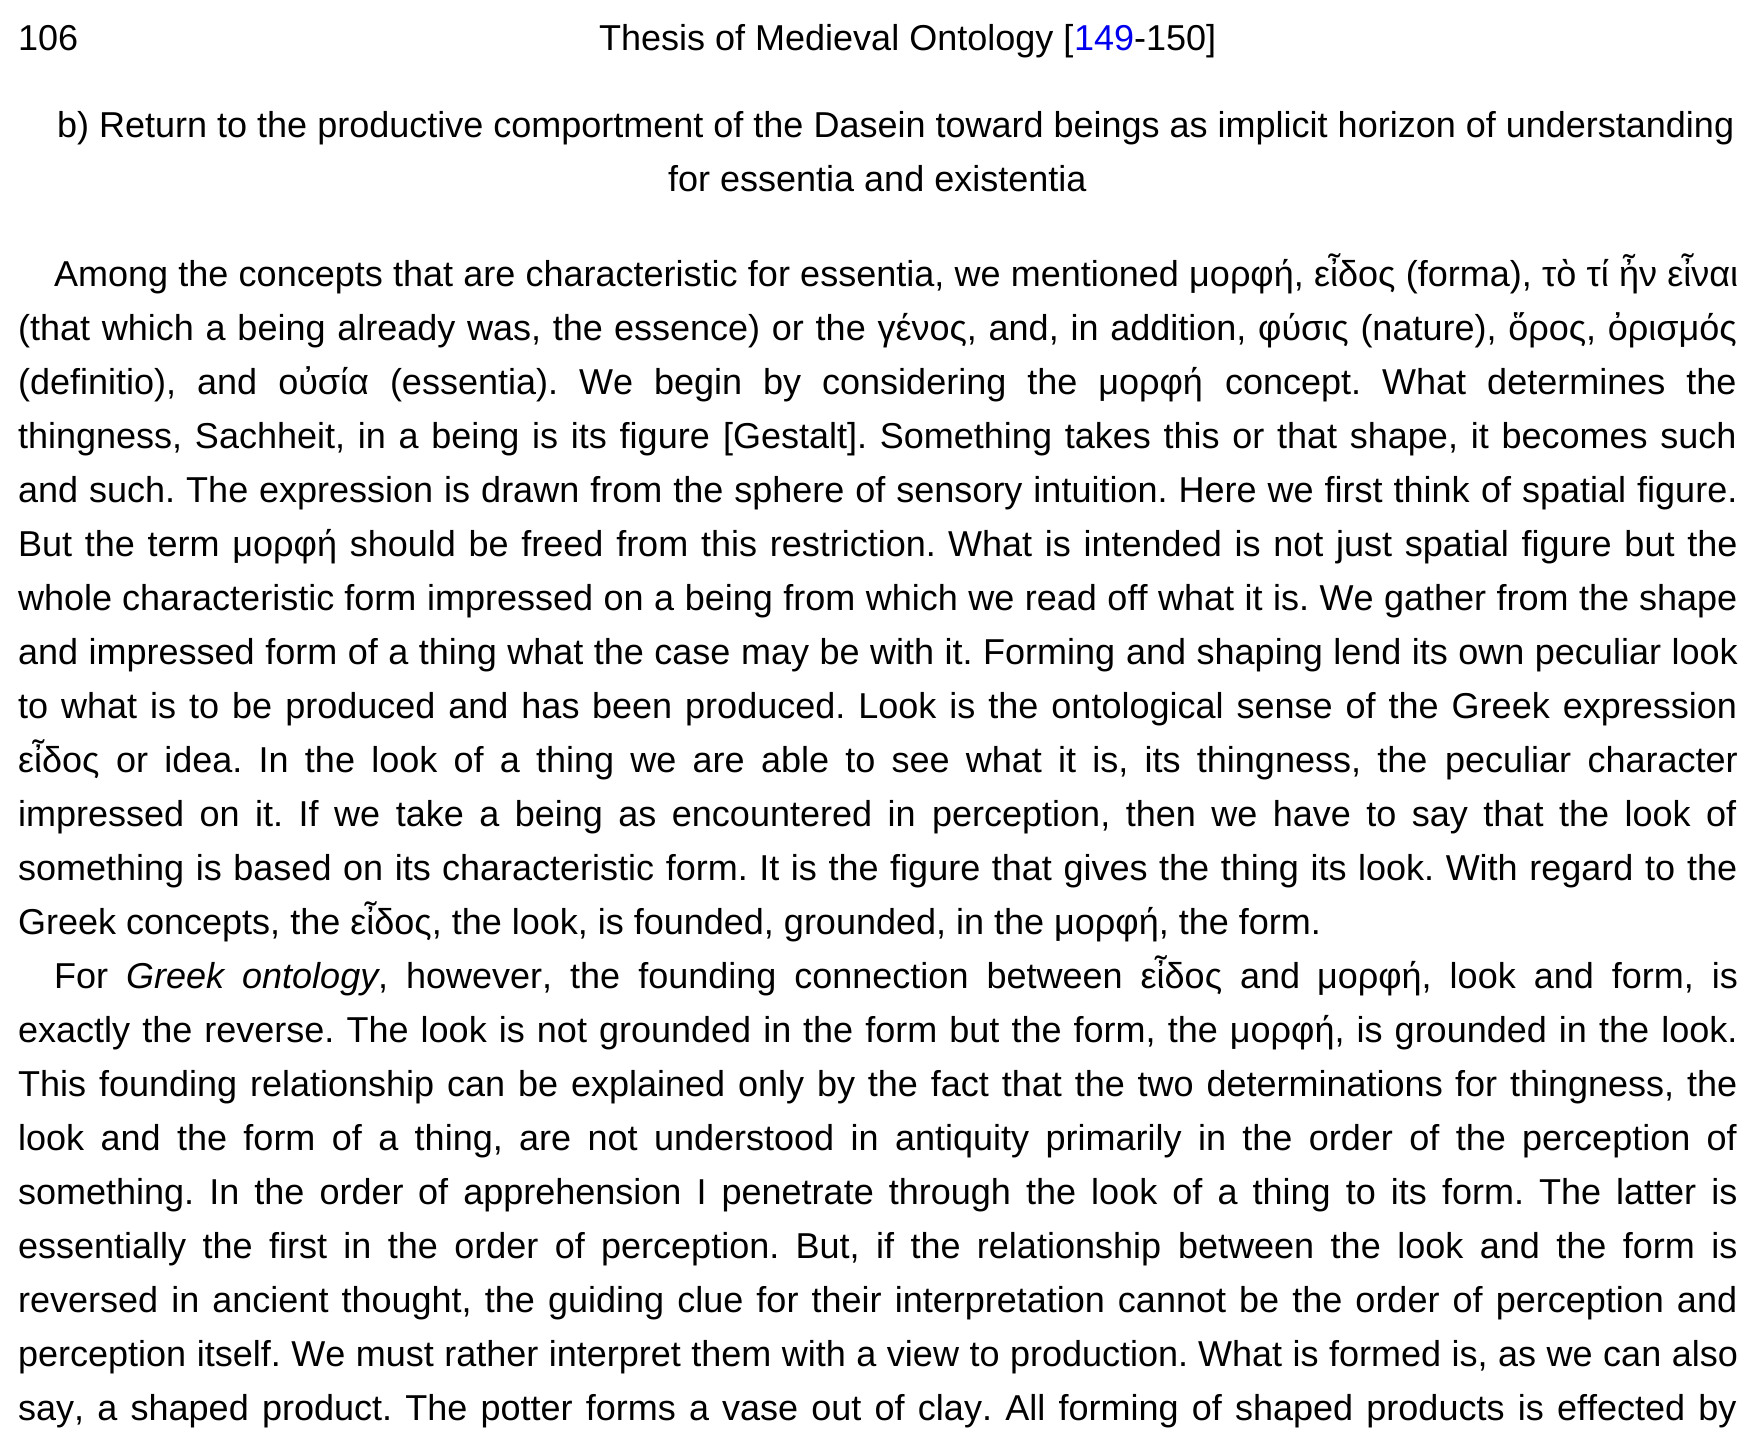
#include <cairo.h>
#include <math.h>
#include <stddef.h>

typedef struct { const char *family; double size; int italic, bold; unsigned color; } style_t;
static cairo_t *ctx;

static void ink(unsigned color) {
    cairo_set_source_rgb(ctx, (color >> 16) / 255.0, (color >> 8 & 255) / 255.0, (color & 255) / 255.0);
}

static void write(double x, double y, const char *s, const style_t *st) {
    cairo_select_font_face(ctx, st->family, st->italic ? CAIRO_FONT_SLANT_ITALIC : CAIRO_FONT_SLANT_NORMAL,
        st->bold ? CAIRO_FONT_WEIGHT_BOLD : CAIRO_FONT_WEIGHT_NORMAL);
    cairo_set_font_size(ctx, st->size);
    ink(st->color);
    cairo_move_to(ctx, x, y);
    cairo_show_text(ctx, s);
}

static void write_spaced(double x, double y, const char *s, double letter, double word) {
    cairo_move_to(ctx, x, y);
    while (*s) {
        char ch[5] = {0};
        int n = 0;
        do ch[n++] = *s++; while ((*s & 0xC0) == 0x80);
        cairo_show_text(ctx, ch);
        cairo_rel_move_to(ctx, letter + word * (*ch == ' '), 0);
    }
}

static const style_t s1 = {"Liberation Sans", 36, 0, 0, 0x000000};
static const style_t s2 = {"Liberation Sans", 36, 0, 0, 0x0000ee};

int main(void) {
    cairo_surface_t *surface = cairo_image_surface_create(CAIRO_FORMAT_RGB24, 1754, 1445);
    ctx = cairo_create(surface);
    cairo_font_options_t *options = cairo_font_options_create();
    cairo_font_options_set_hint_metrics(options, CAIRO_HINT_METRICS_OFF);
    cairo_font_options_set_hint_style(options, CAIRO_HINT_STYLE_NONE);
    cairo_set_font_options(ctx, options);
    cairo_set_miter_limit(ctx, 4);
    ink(0xffffff);
    cairo_paint(ctx);
    write(18, 50, "106", &s1);
    write(599, 50, "Thesis of Medieval Ontology [", &s1);
    write(1074, 50, "149", &s2);
    write(1134, 50, "-150]", &s1);
    write(57, 137, "b) Return to the productive comportment of the Dasein toward beings as implicit horizon of understanding", &s1);
    write(668, 191, "for essentia and existentia", &s1);
    write_spaced(54, 286, "Among the concepts that are characteristic for essentia, we mentioned μορφή, εἶδος (forma), τὸ τί ἦν εἶναι", 0, 0.25);
    write_spaced(18, 340, "(that which a being already was, the", 0, 1.75);
    write_spaced(614, 340, "essence) or the γένος, and, in addition, φύσις (nature), ὅρος, ὀρισμός", 0, 1.75);
    write_spaced(18, 394, "(definitio), and οὐσία (essentia). We begin by considering the μορφή", 0, 11);
    write_spaced(1225, 394, "concept. What determines the", 0, 11);
    write_spaced(18, 448, "thingness, Sachheit, in a being is its figure", 0, 2.75);
    write_spaced(723, 448, "[Gestalt]. Something takes this or that shape, it becomes such", 0, 2.75);
    write_spaced(18, 502, "and such. The", 0, 1);
    write_spaced(259, 502, "expression is drawn from the sphere of sensory intuition. Here we first think", 0, 1);
    write_spaced(1481, 502, "of spatial figure.", 0, 1);
    write_spaced(18, 556, "But the term μορφή should be freed from this restriction.", 0, 2.75);
    write_spaced(948, 556, "What is intended is not just spatial figure but the", 0, 2.75);
    write(18, 610, "whole characteristic form", &s1);
    write_spaced(427, 610, "impressed on a being from which we read off what it is. We gather from the", 0, 0.5);
    write(1639, 610, "shape", &s1);
    write_spaced(18, 664, "and impressed form of a thing what the case may be with it. Forming", 0, 0.5);
    write_spaced(1126, 664, "and shaping lend its own peculiar look", 0, 0.5);
    write_spaced(18, 718, "to what is to be produced and has", 0, 3);
    write_spaced(592, 718, "been produced. Look is the ontological sense of the Greek expression", 0, 3);
    write(18, 772, "εἶδος", &s1);
    write_spaced(116, 772, "or idea. In the look of a thing we are able to see what it is, its thingness, the", 0, 6.25);
    write_spaced(1445, 772, "peculiar character", 0, 6.4);
    write_spaced(18, 826, "impressed on it. If we take a being as encountered in", 0, 5.5);
    write_spaced(932, 826, "perception, then we have to say that the look of", 0, 5.5);
    write_spaced(18, 880, "something is based on its", 0, 1.6);
    write_spaced(442, 880, "characteristic form. It is the figure that gives the thing its look. With regard", 0, 1.6);
    write_spaced(1645, 880, "to the", 0, 2);
    write(18, 934, "Greek concepts, the εἶδος, the look, is founded, grounded, in the μορφή, the form.", &s1);
    write(54, 988, "For", &s1);
    cairo_select_font_face(ctx, "Liberation Sans", CAIRO_FONT_SLANT_ITALIC, CAIRO_FONT_WEIGHT_NORMAL);
    write_spaced(126, 988, "Greek ontology", 0, 8);
    cairo_select_font_face(ctx, "Liberation Sans", CAIRO_FONT_SLANT_NORMAL, CAIRO_FONT_WEIGHT_NORMAL);
    write_spaced(378, 988, ", however, the founding connection between εἶδος and", 0, 8);
    write_spaced(1317, 988, "μορφή, look and form, is", 0, 8);
    write_spaced(18, 1042, "exactly the reverse. The look is not grounded in", 0, 2.1);
    write_spaced(803, 1042, "the form but the form, the μορφή, is grounded in the look.", 0, 2.1);
    write_spaced(18, 1096, "This founding", 0, 2.9);
    write_spaced(250, 1096, "relationship can be explained only by the fact that the two determinations", 0, 2.9);
    write_spaced(1455, 1096, "for thingness, the", 0, 2.9);
    write_spaced(18, 1150, "look and the form of a thing, are not understood in", 0, 6.4);
    write_spaced(895, 1150, "antiquity primarily in the order of the perception of", 0, 6.4);
    write_spaced(18, 1204, "something. In the order", 0, 5.1);
    write_spaced(418, 1204, "of apprehension I penetrate through the look of a thing to its form. The", 0, 5.1);
    write_spaced(1616, 1204, "latter is", 0, 5.1);
    write_spaced(18, 1258, "essentially the first in the order of perception. But, if the relationship", 0, 6.4);
    write_spaced(1178, 1258, "between the look and the form is", 0, 6.5);
    write_spaced(18, 1312, "reversed in ancient thought, the", 0, 3.1);
    write_spaced(548, 1312, "guiding clue for their interpretation cannot be the order of perception and", 0, 3.1);
    write_spaced(18, 1366, "perception itself. We must rather interpret them with a view to production.", 0, 0.5);
    write_spaced(1198, 1366, "What is formed is, as we can also", 0, 0.5);
    write_spaced(18, 1420, "say, a shaped product. The potter forms a", 0, 3.25);
    write_spaced(722, 1420, "vase out of clay. All forming of shaped products is effected by", 0, 3.25);
    cairo_surface_write_to_png(surface, "screenshot.png");
    cairo_font_options_destroy(options);
    cairo_destroy(ctx);
    cairo_surface_destroy(surface);
    return 0;
}
